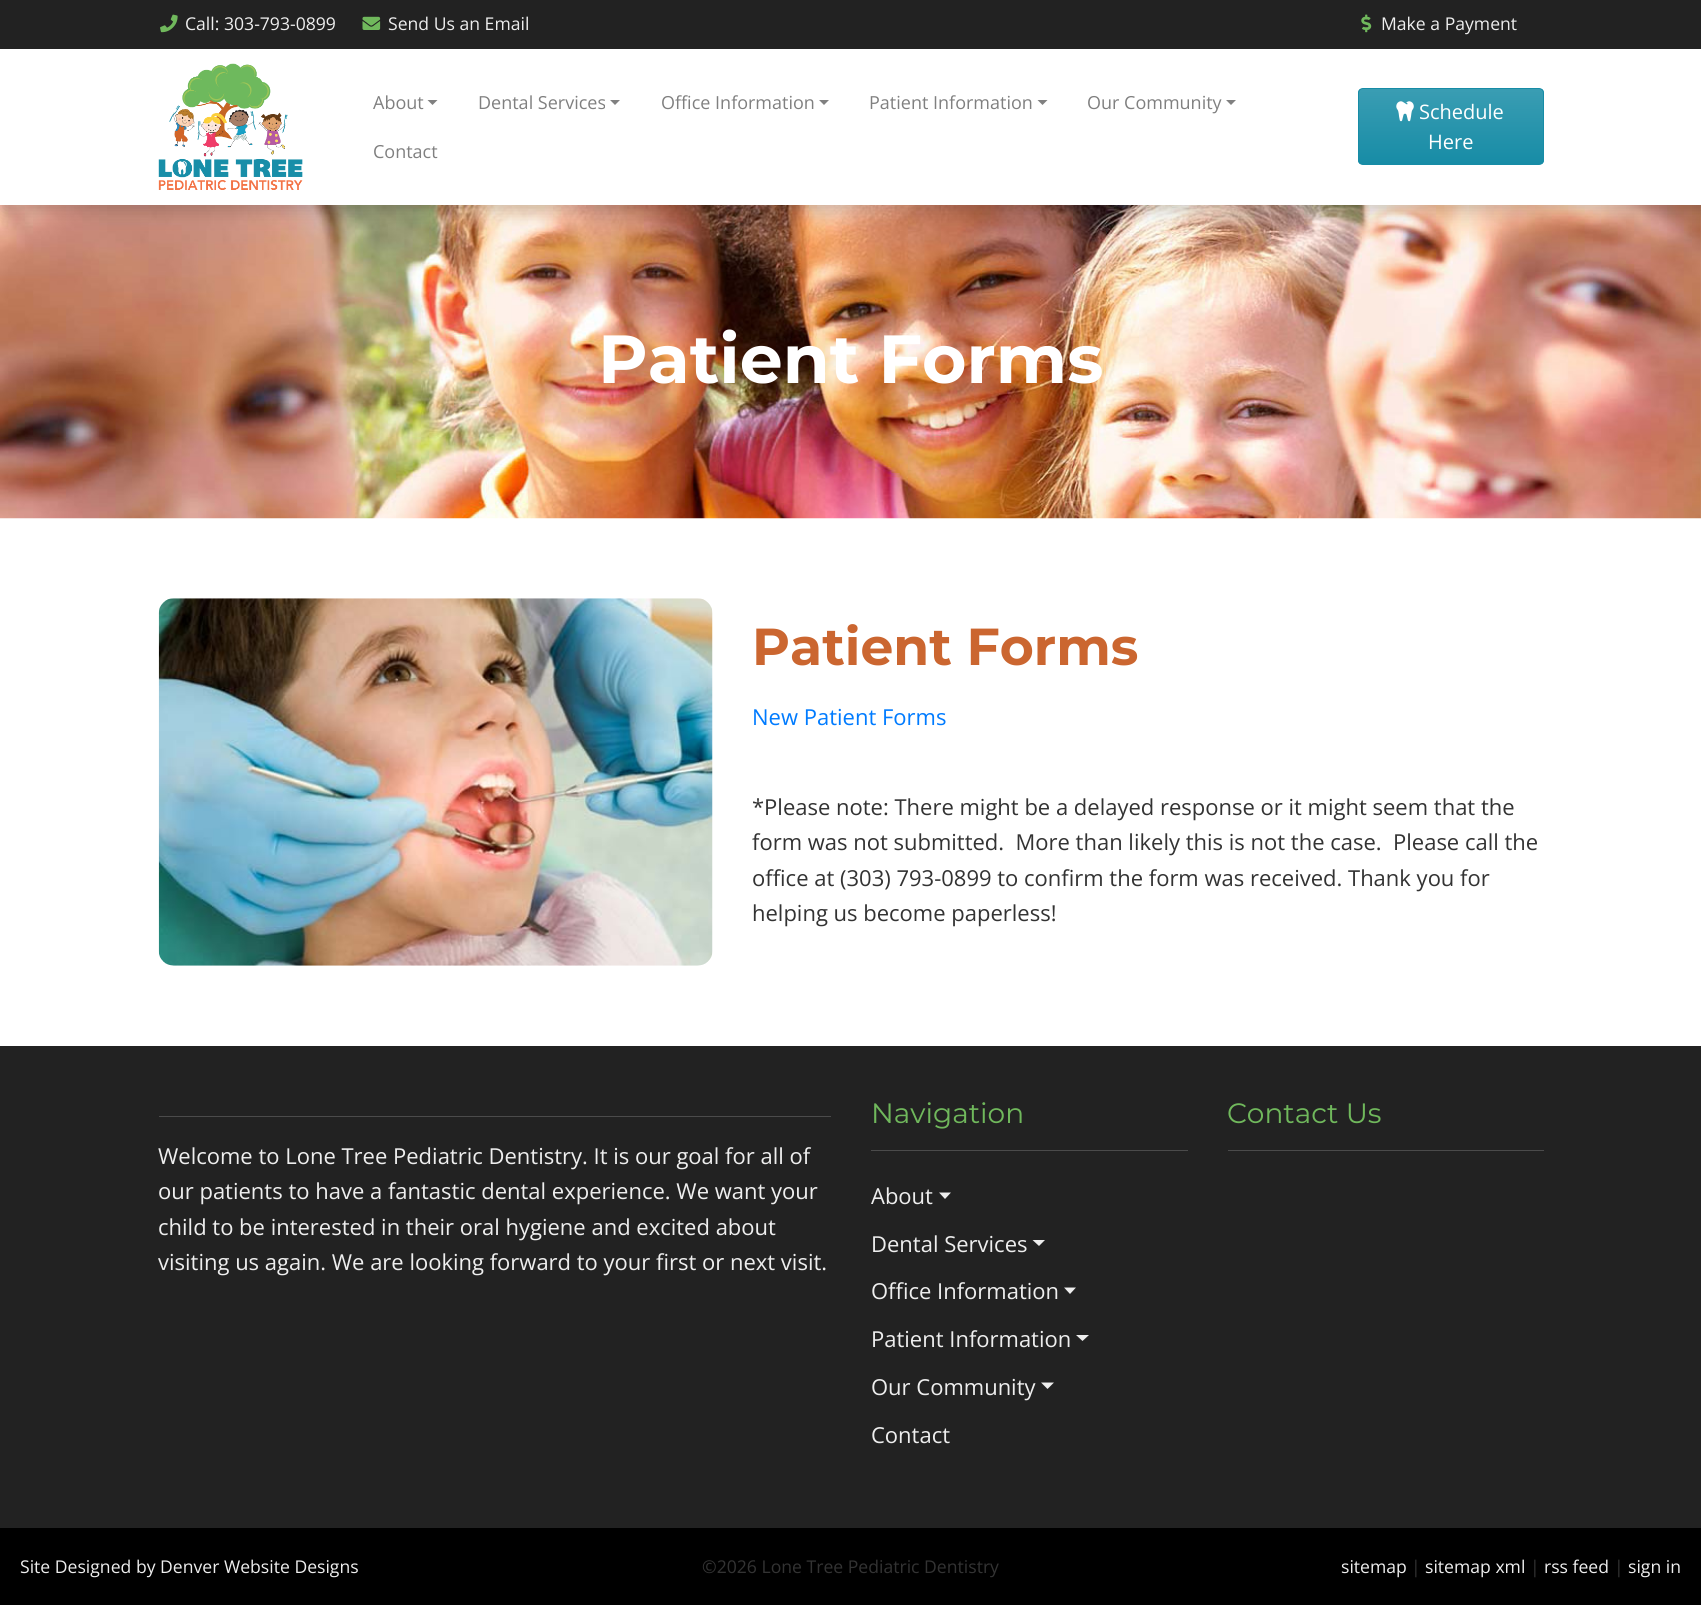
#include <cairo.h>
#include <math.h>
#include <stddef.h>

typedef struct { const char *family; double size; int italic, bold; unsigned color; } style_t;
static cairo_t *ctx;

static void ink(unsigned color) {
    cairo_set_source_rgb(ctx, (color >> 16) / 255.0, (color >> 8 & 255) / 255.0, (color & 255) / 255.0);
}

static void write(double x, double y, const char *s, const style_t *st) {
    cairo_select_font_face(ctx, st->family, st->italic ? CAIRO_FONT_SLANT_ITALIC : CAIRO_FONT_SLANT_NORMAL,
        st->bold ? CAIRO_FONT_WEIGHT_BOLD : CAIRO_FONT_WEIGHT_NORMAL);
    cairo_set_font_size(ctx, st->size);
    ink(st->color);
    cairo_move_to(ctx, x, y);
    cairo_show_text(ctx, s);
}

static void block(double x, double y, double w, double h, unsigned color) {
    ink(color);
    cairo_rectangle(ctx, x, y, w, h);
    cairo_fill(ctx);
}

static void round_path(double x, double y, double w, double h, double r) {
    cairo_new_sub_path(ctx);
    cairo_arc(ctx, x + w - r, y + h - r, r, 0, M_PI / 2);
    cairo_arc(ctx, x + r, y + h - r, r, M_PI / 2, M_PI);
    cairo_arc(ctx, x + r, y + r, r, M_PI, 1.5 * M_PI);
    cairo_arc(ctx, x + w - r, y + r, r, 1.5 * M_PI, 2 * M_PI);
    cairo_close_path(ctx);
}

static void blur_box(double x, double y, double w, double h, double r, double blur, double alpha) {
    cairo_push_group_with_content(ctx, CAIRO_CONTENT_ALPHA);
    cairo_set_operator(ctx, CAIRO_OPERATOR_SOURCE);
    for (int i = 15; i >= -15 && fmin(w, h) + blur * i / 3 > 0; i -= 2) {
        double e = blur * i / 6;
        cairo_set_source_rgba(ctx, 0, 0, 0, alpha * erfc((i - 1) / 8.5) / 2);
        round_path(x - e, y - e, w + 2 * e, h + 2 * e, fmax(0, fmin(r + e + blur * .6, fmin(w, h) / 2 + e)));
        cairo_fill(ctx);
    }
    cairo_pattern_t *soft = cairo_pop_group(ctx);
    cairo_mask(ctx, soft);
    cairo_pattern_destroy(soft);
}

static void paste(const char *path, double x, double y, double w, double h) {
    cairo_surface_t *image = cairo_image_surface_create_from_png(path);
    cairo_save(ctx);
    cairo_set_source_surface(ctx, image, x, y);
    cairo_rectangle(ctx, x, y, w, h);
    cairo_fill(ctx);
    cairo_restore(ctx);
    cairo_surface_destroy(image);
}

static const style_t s1 = {"Open Sans", 17.6, 0, 0, 0xeeeeee};
static const style_t s2 = {"Open Sans", 18, 0, 0, 0x808080};
static const style_t s3 = {"Open Sans", 20, 0, 0, 0xffffff};
static const style_t s4 = {"Montserrat", 68, 0, 1, 0xffffff};
static const style_t s5 = {"Montserrat", 52, 0, 1, 0xcb6630};
static const style_t s6 = {"Open Sans", 22, 0, 0, 0x007bff};
static const style_t s7 = {"Open Sans", 22, 0, 0, 0x333333};
static const style_t s8 = {"Montserrat", 28, 0, 0, 0x70b85c};
static const style_t s9 = {"Open Sans", 22, 0, 0, 0xeeeeee};
static const style_t s10 = {"Open Sans", 17.6, 0, 0, 0x333333};

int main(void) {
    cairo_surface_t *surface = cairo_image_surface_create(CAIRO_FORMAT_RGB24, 1701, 1605);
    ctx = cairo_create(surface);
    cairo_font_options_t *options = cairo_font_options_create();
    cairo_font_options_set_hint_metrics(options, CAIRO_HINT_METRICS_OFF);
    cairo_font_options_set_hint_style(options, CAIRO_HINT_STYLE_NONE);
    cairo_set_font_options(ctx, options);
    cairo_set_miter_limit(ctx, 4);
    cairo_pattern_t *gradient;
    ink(0xffffff);
    cairo_paint(ctx);
    paste("pic6.png", 0, 205, 1701, 314);
    ink(0x000000);
    blur_box(3, 5, 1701, 205, 0, 9, 0.2);
    block(0, 49, 1701, 156, 0xffffff);
    block(0, 0, 1701, 49, 0x222222);
    paste("pic1.png", 160, 14, 18, 19);
    write(185, 30, "Call: 303-793-0899", &s1);
    paste("pic2.png", 362, 16, 19, 14);
    write(388, 30, "Send Us an Email", &s1);
    paste("pic3.png", 1361, 14, 11, 19);
    write(1381, 30, "Make a Payment", &s1);
    paste("pic4.png", 158, 63, 145, 127);
    write(373, 109, "About", &s2);
    cairo_new_path(ctx);
    cairo_move_to(ctx, 427.5, 100);
    cairo_line_to(ctx, 437.5, 100);
    cairo_line_to(ctx, 432.5, 105);
    cairo_close_path(ctx);
    cairo_fill(ctx);
    write(478, 109, "Dental Services", &s2);
    cairo_new_path(ctx);
    cairo_move_to(ctx, 610, 100);
    cairo_line_to(ctx, 620, 100);
    cairo_line_to(ctx, 615, 105);
    cairo_close_path(ctx);
    cairo_fill(ctx);
    write(661, 109, "Office Information", &s2);
    cairo_new_path(ctx);
    cairo_move_to(ctx, 819, 100);
    cairo_line_to(ctx, 829, 100);
    cairo_line_to(ctx, 824, 105);
    cairo_close_path(ctx);
    cairo_fill(ctx);
    write(869, 109, "Patient Information", &s2);
    cairo_new_path(ctx);
    cairo_move_to(ctx, 1037.5, 100);
    cairo_line_to(ctx, 1047.5, 100);
    cairo_line_to(ctx, 1042.5, 105);
    cairo_close_path(ctx);
    cairo_fill(ctx);
    write(1087, 109, "Our Community", &s2);
    cairo_new_path(ctx);
    cairo_move_to(ctx, 1226, 100);
    cairo_line_to(ctx, 1236, 100);
    cairo_line_to(ctx, 1231, 105);
    cairo_close_path(ctx);
    cairo_fill(ctx);
    write(373, 158, "Contact", &s2);
    cairo_save(ctx);
    round_path(1358, 88, 186, 77, 5);
    cairo_clip(ctx);
    gradient = cairo_pattern_create_linear(1451, 89, 1451, 164);
    cairo_pattern_add_color_stop_rgba(gradient, 0, 0.227, 0.616, 0.702, 1);
    cairo_pattern_add_color_stop_rgba(gradient, 1, 0.09, 0.549, 0.651, 1);
    cairo_set_source(ctx, gradient);
    cairo_pattern_destroy(gradient);
    cairo_rectangle(ctx, 1358, 89, 186, 75);
    cairo_fill(ctx);
    cairo_restore(ctx);
    round_path(1358.5, 88.5, 185, 76, 4.5);
    ink(0x178ca6);
    cairo_set_line_width(ctx, 1);
    cairo_stroke(ctx);
    paste("pic5.png", 1396, 101, 18, 21);
    write(1419, 119, "Schedule", &s3);
    write(1428, 149, "Here", &s3);
    write(598, 383, "Patient Forms", &s4);
    paste("pic7.png", 158, 598, 555, 368);
    write(752, 665, "Patient Forms", &s5);
    write(752, 725, "New Patient Forms", &s6);
    write(752, 815, "*Please note: There might be a delayed response or it might seem that the", &s7);
    write(752, 850, "form was not submitted.  More than likely this is not the case.  Please call the", &s7);
    write(752, 886, "office at (303) 793-0899 to confirm the form was received. Thank you for", &s7);
    write(752, 921, "helping us become paperless!", &s7);
    block(0, 1046, 1701, 482, 0x222222);
    write(871, 1123, "Navigation", &s8);
    block(871, 1150, 317, 1, 0x4b4b4b);
    write(871, 1204, "About", &s9);
    cairo_new_path(ctx);
    cairo_move_to(ctx, 939, 1192.5);
    cairo_line_to(ctx, 951, 1192.5);
    cairo_line_to(ctx, 945, 1199);
    cairo_close_path(ctx);
    cairo_fill(ctx);
    write(871, 1252, "Dental Services", &s9);
    cairo_new_path(ctx);
    cairo_move_to(ctx, 1032.5, 1240);
    cairo_line_to(ctx, 1045, 1240);
    cairo_line_to(ctx, 1039, 1246);
    cairo_close_path(ctx);
    cairo_fill(ctx);
    write(871, 1299, "Office Information", &s9);
    cairo_new_path(ctx);
    cairo_move_to(ctx, 1064, 1287.5);
    cairo_line_to(ctx, 1076, 1287.5);
    cairo_line_to(ctx, 1070, 1294);
    cairo_close_path(ctx);
    cairo_fill(ctx);
    write(871, 1347, "Patient Information", &s9);
    cairo_new_path(ctx);
    cairo_move_to(ctx, 1076, 1335);
    cairo_line_to(ctx, 1089, 1335);
    cairo_line_to(ctx, 1082.5, 1341);
    cairo_close_path(ctx);
    cairo_fill(ctx);
    write(871, 1395, "Our Community", &s9);
    cairo_new_path(ctx);
    cairo_move_to(ctx, 1041, 1382.5);
    cairo_line_to(ctx, 1054, 1382.5);
    cairo_line_to(ctx, 1047.5, 1389);
    cairo_close_path(ctx);
    cairo_fill(ctx);
    write(871, 1443, "Contact", &s9);
    write(1227, 1123, "Contact Us", &s8);
    block(1228, 1150, 316, 1, 0x4b4b4b);
    block(159, 1116, 672, 1, 0x4b4b4b);
    write(158, 1164, "Welcome to Lone Tree Pediatric Dentistry. It is our goal for all of", &s9);
    write(158, 1199, "our patients to have a fantastic dental experience. We want your", &s9);
    write(158, 1235, "child to be interested in their oral hygiene and excited about", &s9);
    write(158, 1270, "visiting us again. We are looking forward to your first or next visit.", &s9);
    block(0, 1528, 1701, 77, 0x000000);
    write(20, 1573, "Site Designed by Denver Website Designs", &s1);
    write(702, 1573, "©2026 Lone Tree Pediatric Dentistry", &s10);
    write(1341, 1573, "sitemap", &s1);
    write(1411, 1573, "|", &s10);
    write(1425, 1573, "sitemap xml", &s1);
    write(1530, 1573, "|", &s10);
    write(1544, 1573, "rss feed", &s1);
    write(1614, 1573, "|", &s10);
    write(1628, 1573, "sign in", &s1);
    cairo_surface_write_to_png(surface, "screenshot.png");
    cairo_font_options_destroy(options);
    cairo_destroy(ctx);
    cairo_surface_destroy(surface);
    return 0;
}
